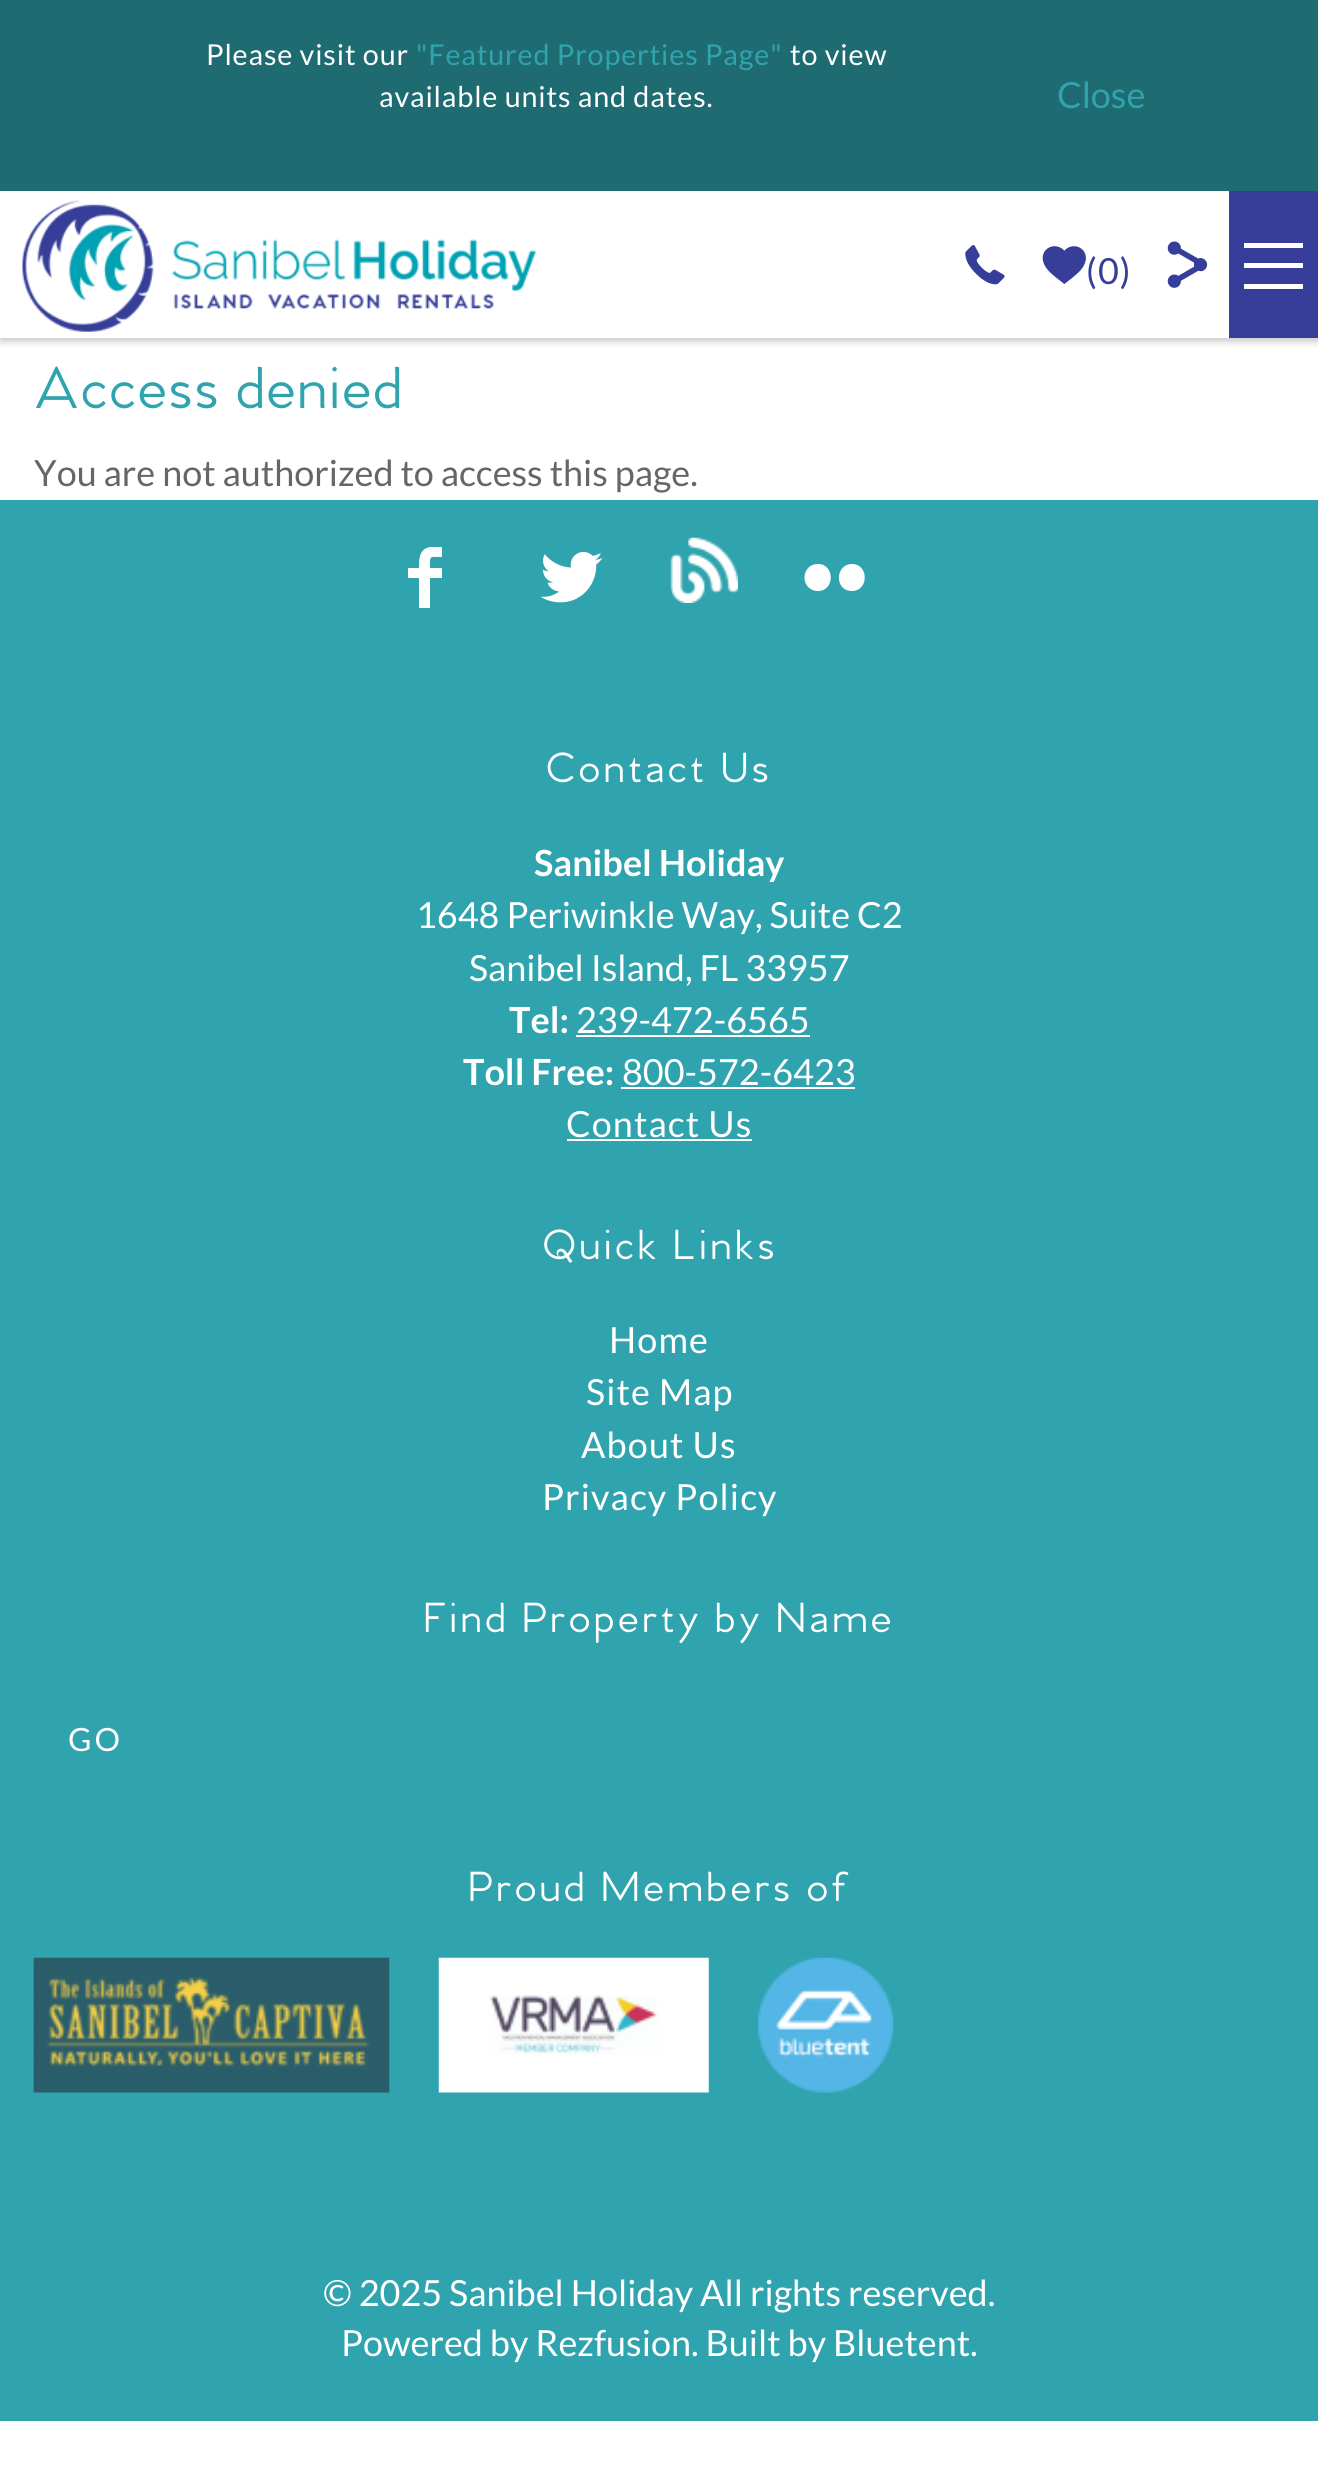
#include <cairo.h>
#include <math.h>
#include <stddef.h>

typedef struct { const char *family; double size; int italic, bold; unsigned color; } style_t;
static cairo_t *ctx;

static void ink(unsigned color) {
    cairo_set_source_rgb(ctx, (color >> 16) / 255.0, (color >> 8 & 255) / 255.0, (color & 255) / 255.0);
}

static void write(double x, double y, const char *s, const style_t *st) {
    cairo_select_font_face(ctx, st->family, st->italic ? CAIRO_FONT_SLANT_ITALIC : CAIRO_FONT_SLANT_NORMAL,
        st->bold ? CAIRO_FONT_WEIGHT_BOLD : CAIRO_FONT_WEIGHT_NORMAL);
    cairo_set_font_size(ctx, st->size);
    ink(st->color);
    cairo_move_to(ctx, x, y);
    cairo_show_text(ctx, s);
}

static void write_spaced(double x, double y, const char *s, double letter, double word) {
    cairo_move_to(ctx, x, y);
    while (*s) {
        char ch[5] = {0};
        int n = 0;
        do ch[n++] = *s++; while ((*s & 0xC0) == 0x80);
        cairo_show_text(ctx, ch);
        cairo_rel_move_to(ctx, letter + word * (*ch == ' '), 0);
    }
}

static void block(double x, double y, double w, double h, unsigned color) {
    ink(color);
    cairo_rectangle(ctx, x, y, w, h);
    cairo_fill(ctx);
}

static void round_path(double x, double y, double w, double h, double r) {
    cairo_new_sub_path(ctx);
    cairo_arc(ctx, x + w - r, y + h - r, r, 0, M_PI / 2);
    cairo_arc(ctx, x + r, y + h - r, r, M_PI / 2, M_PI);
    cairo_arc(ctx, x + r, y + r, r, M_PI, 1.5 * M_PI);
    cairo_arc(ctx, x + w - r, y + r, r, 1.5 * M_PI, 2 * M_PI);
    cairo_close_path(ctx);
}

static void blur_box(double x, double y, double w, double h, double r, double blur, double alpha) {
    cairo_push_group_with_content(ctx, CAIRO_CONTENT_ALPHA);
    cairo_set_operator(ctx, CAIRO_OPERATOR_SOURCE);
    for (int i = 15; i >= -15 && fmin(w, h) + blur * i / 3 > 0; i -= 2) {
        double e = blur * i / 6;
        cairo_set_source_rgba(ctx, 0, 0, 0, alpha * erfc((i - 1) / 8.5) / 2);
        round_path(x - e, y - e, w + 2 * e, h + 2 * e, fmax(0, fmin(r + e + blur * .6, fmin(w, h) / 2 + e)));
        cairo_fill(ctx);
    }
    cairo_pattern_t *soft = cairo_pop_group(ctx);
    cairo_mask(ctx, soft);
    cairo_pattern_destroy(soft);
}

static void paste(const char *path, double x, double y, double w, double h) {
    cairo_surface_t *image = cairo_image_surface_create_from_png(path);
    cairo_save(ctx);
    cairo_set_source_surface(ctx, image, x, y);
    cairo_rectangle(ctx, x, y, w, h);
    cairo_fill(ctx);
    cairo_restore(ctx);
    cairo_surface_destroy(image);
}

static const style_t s1 = {"Lato", 36, 0, 0, 0x2fa3ae};
static const style_t s2 = {"Lato", 36, 0, 0, 0x666666};
static const style_t s3 = {"Lato", 36, 0, 1, 0xffffff};
static const style_t s4 = {"Lato", 36, 0, 0, 0xffffff};

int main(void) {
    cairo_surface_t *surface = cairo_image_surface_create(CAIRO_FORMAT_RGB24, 1318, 2470);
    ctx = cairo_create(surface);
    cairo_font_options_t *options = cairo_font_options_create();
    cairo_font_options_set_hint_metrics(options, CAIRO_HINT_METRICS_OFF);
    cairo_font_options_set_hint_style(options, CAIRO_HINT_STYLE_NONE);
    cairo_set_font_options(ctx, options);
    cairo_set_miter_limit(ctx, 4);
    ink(0xffffff);
    cairo_paint(ctx);
    ink(0x000000);
    blur_box(0, 196, 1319, 146, 0, 3.5, 0.2);
    block(0, 0, 1318, 191, 0x1f6b72);
    cairo_select_font_face(ctx, "Lato", CAIRO_FONT_SLANT_NORMAL, CAIRO_FONT_WEIGHT_NORMAL);
    cairo_set_font_size(ctx, 28.75);
    ink(0xffffff);
    write_spaced(206, 65, "Please visit our", 0.85, 0);
    ink(0x2fa3ae);
    write_spaced(416, 65, "\"Featured Properties Page\"", 0.85, 0);
    ink(0xffffff);
    write_spaced(790, 65, "to view", 0.85, 0);
    write_spaced(379, 107, "available units and dates.", 0.85, 0);
    write(1057, 108, "Close", &s1);
    block(0, 191, 1229, 147, 0xffffff);
    paste("pic1.png", 22, 200, 514, 132);
    paste("pic2.png", 965, 245, 40, 40);
    paste("pic3.png", 1042, 246, 44, 38);
    ink(0x363e99);
    write_spaced(1086, 284, "(0)", 1.1, 0);
    paste("pic4.png", 1167, 241, 41, 47);
    block(1229, 191, 89, 147, 0x363e99);
    block(1244, 263, 59, 5, 0xffffff);
    block(1244, 243, 59, 5, 0xffffff);
    block(1244, 284, 59, 5, 0xffffff);
    cairo_select_font_face(ctx, "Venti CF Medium", CAIRO_FONT_SLANT_NORMAL, CAIRO_FONT_WEIGHT_NORMAL);
    cairo_set_font_size(ctx, 60.75);
    ink(0x2fa3ae);
    write_spaced(34, 408, "Access denied", 1.75, 0);
    write(34, 486, "You are not authorized to access this page.", &s2);
    block(0, 500, 1318, 1921, 0x2fa3ae);
    ink(0xffffff);
    cairo_new_path(ctx);
    cairo_move_to(ctx, 442, 557);
    cairo_curve_to(ctx, 429, 557, 430, 555, 430, 568);
    cairo_line_to(ctx, 442, 568);
    cairo_line_to(ctx, 442, 578);
    cairo_line_to(ctx, 430, 578);
    cairo_line_to(ctx, 430, 608);
    cairo_line_to(ctx, 419, 608);
    cairo_line_to(ctx, 419, 578);
    cairo_line_to(ctx, 408, 578);
    cairo_line_to(ctx, 408, 568);
    cairo_line_to(ctx, 419, 568);
    cairo_curve_to(ctx, 419, 559, 419, 549, 430, 547);
    cairo_line_to(ctx, 442, 547);
    cairo_close_path(ctx);
    cairo_fill(ctx);
    paste("pic5.png", 540, 551, 63, 52);
    paste("pic6.png", 670, 537, 68, 66);
    cairo_new_path(ctx);
    cairo_move_to(ctx, 818, 591);
    cairo_curve_to(ctx, 800, 591, 800, 564, 818, 564);
    cairo_curve_to(ctx, 835, 564, 835, 591, 818, 591);
    cairo_close_path(ctx);
    cairo_move_to(ctx, 852, 591);
    cairo_curve_to(ctx, 834, 591, 835, 564, 852, 564);
    cairo_curve_to(ctx, 869, 564, 869, 591, 852, 591);
    cairo_close_path(ctx);
    cairo_fill(ctx);
    cairo_select_font_face(ctx, "Venti CF Medium", CAIRO_FONT_SLANT_NORMAL, CAIRO_FONT_WEIGHT_NORMAL);
    cairo_set_font_size(ctx, 43.25);
    write_spaced(546, 782, "Contact Us", 3.25, 0);
    write(534, 876, "Sanibel Holiday", &s3);
    write(416, 928, "1648 Periwinkle Way, Suite C2", &s4);
    write(469, 981, "Sanibel Island, FL 33957", &s4);
    write(509, 1033, "Tel:", &s3);
    write(576, 1033, "239-472-6565", &s4);
    block(576, 1035, 234, 2, 0xffffff);
    write(463, 1085, "Toll Free:", &s3);
    write(622, 1085, "800-572-6423", &s4);
    block(621, 1087, 234, 2, 0xffffff);
    write_spaced(566, 1137, "Contact Us", 1.1, 0);
    block(567, 1139, 185, 2, 0xffffff);
    cairo_select_font_face(ctx, "Venti CF Medium", CAIRO_FONT_SLANT_NORMAL, CAIRO_FONT_WEIGHT_NORMAL);
    cairo_set_font_size(ctx, 43.25);
    write_spaced(542, 1259, "Quick Links", 3.25, 0);
    cairo_select_font_face(ctx, "Lato", CAIRO_FONT_SLANT_NORMAL, CAIRO_FONT_WEIGHT_NORMAL);
    cairo_set_font_size(ctx, 36);
    write_spaced(609, 1353, "Home", 1.1, 0);
    write_spaced(586, 1405, "Site Map", 1.1, 0);
    write_spaced(581, 1458, "About Us", 1.1, 0);
    write_spaced(542, 1510, "Privacy Policy", 1.1, 0);
    cairo_select_font_face(ctx, "Venti CF Medium", CAIRO_FONT_SLANT_NORMAL, CAIRO_FONT_WEIGHT_NORMAL);
    cairo_set_font_size(ctx, 43.25);
    write_spaced(424, 1632, "Find Property by Name", 3.25, 0);
    cairo_select_font_face(ctx, "Lato", CAIRO_FONT_SLANT_NORMAL, CAIRO_FONT_WEIGHT_NORMAL);
    cairo_set_font_size(ctx, 32);
    write_spaced(68, 1751, "GO", 3, 0);
    cairo_select_font_face(ctx, "Venti CF Medium", CAIRO_FONT_SLANT_NORMAL, CAIRO_FONT_WEIGHT_NORMAL);
    cairo_set_font_size(ctx, 43.25);
    write_spaced(468, 1901, "Proud Members of", 3.25, 0);
    paste("pic7.png", 33, 1957, 357, 136);
    paste("pic8.png", 438, 1957, 271, 136);
    paste("pic9.png", 758, 1957, 136, 136);
    write(323, 2306, "© 2025 Sanibel Holiday All rights reserved.", &s4);
    write(341, 2356, "Powered by Rezfusion. Built by Bluetent.", &s4);
    cairo_surface_write_to_png(surface, "screenshot.png");
    cairo_font_options_destroy(options);
    cairo_destroy(ctx);
    cairo_surface_destroy(surface);
    return 0;
}
